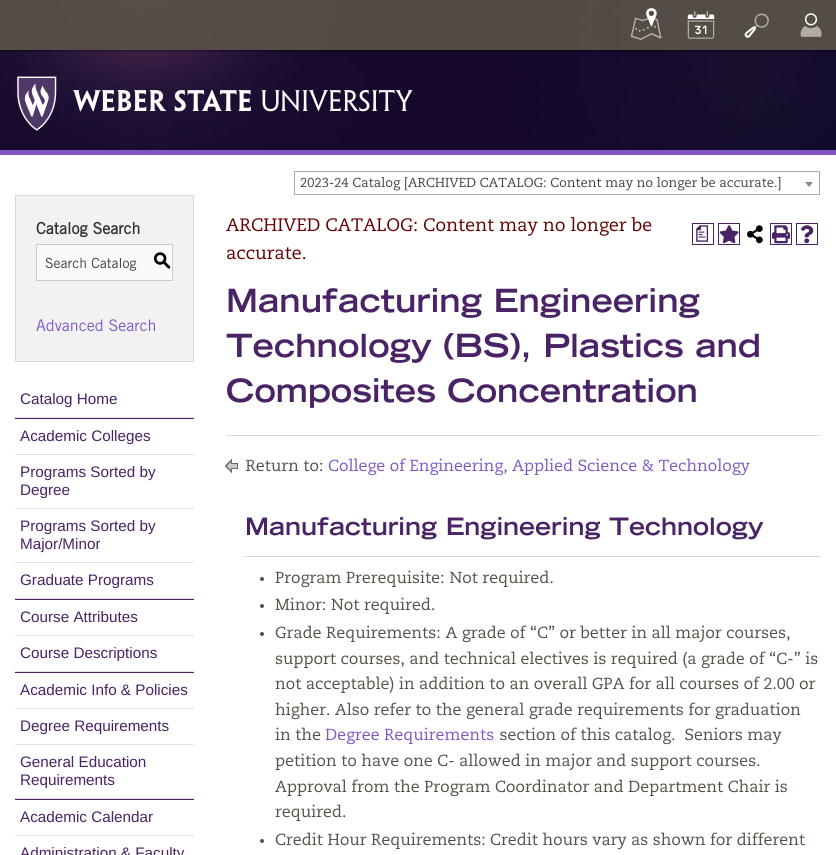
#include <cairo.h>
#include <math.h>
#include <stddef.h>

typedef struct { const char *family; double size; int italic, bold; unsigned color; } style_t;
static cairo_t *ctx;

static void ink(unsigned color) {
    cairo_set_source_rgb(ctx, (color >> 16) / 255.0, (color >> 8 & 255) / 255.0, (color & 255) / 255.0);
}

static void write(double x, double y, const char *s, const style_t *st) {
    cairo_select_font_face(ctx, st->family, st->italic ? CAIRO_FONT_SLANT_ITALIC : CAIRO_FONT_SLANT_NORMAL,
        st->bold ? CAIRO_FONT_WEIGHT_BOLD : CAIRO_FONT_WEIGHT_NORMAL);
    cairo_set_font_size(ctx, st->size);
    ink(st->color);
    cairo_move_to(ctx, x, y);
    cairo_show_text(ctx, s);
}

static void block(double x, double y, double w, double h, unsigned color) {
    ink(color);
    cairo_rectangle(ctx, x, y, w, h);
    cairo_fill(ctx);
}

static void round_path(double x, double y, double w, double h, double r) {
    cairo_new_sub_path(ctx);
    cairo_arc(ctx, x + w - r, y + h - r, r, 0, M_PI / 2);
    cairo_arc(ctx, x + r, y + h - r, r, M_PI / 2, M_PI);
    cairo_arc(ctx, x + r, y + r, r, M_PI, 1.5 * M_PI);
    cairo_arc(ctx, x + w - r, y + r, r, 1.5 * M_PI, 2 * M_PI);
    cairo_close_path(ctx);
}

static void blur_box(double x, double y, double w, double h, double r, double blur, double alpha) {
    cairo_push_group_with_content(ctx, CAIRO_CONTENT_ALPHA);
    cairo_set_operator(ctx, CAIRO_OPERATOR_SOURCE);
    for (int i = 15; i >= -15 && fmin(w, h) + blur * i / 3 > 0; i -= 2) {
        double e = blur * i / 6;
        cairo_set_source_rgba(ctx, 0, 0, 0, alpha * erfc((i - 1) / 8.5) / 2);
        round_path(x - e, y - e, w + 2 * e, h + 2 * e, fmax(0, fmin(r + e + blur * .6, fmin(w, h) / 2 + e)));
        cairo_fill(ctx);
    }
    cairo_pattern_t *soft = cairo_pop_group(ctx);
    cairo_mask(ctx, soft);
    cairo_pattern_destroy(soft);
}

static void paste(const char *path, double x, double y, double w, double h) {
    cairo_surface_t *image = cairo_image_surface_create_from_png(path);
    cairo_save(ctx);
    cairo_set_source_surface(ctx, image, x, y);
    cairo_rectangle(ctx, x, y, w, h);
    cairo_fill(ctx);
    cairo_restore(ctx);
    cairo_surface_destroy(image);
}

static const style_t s1 = {"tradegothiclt", 16, 0, 1, 0x333333};
static const style_t s2 = {"tradegothiclt", 14, 0, 0, 0x3f3f3f};
static const style_t s3 = {"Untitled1 Medium", 18, 0, 0, 0x000000};
static const style_t s4 = {"tradegothiclt", 16, 0, 0, 0x7f56c5};
static const style_t s5 = {"Liberation Sans", 15.25, 0, 0, 0x492365};
static const style_t s6 = {"Untitled1 Medium", 18, 0, 0, 0x492365};
static const style_t s7 = {"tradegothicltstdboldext", 32, 0, 1, 0x492365};
static const style_t s8 = {"tradegothicltstdboldext", 24, 0, 1, 0x492365};

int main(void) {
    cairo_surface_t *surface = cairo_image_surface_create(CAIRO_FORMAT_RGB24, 836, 855);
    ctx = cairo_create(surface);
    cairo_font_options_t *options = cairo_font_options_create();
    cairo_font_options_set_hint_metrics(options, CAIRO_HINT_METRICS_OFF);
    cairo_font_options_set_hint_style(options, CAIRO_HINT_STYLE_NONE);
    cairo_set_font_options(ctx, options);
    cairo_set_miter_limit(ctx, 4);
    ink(0xffffff);
    cairo_paint(ctx);
    paste("pic1.png", 0, 0, 836, 150);
    block(0, 150, 836, 5, 0x7f56c5);
    paste("pic2.png", 17, 76, 396, 55);
    cairo_save(ctx);
    cairo_rectangle(ctx, 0, 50, 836, 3);
    cairo_clip(ctx);
    ink(0x000000);
    blur_box(0, 1, 836, 50, 0, 1, 0.5);
    cairo_restore(ctx);
    cairo_set_source_rgba(ctx, 0.341, 0.314, 0.278, 0.95);
    cairo_rectangle(ctx, 0, 0, 836, 50);
    cairo_fill(ctx);
    paste("pic3.png", 630, 8, 32, 32);
    paste("pic4.png", 687, 11, 28, 28);
    paste("pic5.png", 744, 13, 25, 25);
    paste("pic6.png", 800, 13, 22, 24);
    cairo_rectangle(ctx, 294.5, 171.5, 525, 23);
    ink(0xaaaaaa);
    cairo_set_line_width(ctx, 1);
    cairo_stroke(ctx);
    paste("pic7.png", 300, 177, 481, 14);
    ink(0x888888);
    cairo_new_path(ctx);
    cairo_move_to(ctx, 805, 182);
    cairo_line_to(ctx, 813, 182);
    cairo_line_to(ctx, 809, 187);
    cairo_close_path(ctx);
    cairo_fill(ctx);
    ink(0xf2f2f2);
    cairo_rectangle(ctx, 15.5, 195.5, 178, 166);
    cairo_fill_preserve(ctx);
    ink(0xd8d8d8);
    cairo_stroke(ctx);
    write(36, 234, "Catalog Search", &s1);
    ink(0xfafafa);
    cairo_rectangle(ctx, 36.5, 244.5, 136, 36);
    cairo_fill_preserve(ctx);
    ink(0xcccccc);
    cairo_stroke(ctx);
    write(45, 268, "Search Catalog", &s2);
    write(153, 266, "S", &s3);
    write(36, 331, "Advanced Search", &s4);
    block(15, 417, 179, 1, 0xe3dee8);
    write(20, 404, "Catalog Home", &s5);
    block(15, 418, 179, 1, 0x492365);
    block(15, 454, 179, 1, 0xe3dee8);
    write(20, 441, "Academic Colleges", &s5);
    block(15, 508, 179, 1, 0xe3dee8);
    write(20, 477, "Programs Sorted by", &s5);
    write(20, 495, "Degree", &s5);
    block(15, 562, 179, 1, 0xe3dee8);
    write(20, 531, "Programs Sorted by", &s5);
    write(20, 549, "Major/Minor", &s5);
    block(15, 598, 179, 1, 0xe3dee8);
    write(20, 585, "Graduate Programs", &s5);
    block(15, 599, 179, 1, 0x492365);
    block(15, 635, 179, 1, 0xe3dee8);
    write(20, 622, "Course Attributes", &s5);
    block(15, 671, 179, 1, 0xe3dee8);
    write(20, 658, "Course Descriptions", &s5);
    block(15, 672, 179, 1, 0x492365);
    block(15, 708, 179, 1, 0xe3dee8);
    write(20, 695, "Academic Info & Policies", &s5);
    block(15, 744, 179, 1, 0xe3dee8);
    write(20, 731, "Degree Requirements", &s5);
    block(15, 798, 179, 1, 0xe3dee8);
    write(20, 767, "General Education", &s5);
    write(20, 785, "Requirements", &s5);
    block(15, 799, 179, 1, 0x492365);
    block(15, 835, 179, 1, 0xe3dee8);
    write(20, 822, "Academic Calendar", &s5);
    write(20, 858, "Administration & Faculty", &s5);
    paste("pic8.png", 226, 217, 426, 19);
    cairo_rectangle(ctx, 692.5, 223.5, 21, 21);
    cairo_stroke(ctx);
    write(693, 239, "a", &s6);
    cairo_rectangle(ctx, 718.5, 223.5, 21, 21);
    cairo_stroke(ctx);
    paste("pic9.png", 719, 225, 20, 19);
    paste("pic10.png", 747, 225, 16, 19);
    cairo_rectangle(ctx, 770.5, 223.5, 21, 21);
    cairo_stroke(ctx);
    paste("pic11.png", 772, 225, 18, 19);
    cairo_rectangle(ctx, 796.5, 223.5, 21, 21);
    cairo_stroke(ctx);
    paste("pic12.png", 801, 225, 13, 19);
    paste("pic13.png", 227, 247, 79, 13);
    write(226, 312, "Manufacturing Engineering", &s7);
    write(226, 357, "Technology (BS), Plastics and", &s7);
    write(226, 402, "Composites Concentration", &s7);
    block(226, 435, 593, 1, 0xd8d8d8);
    paste("pic14.png", 225, 459, 13, 14);
    paste("pic15.png", 246, 459, 77, 13);
    paste("pic16.png", 328, 458, 422, 18);
    write(245, 535, "Manufacturing Engineering Technology", &s8);
    block(245, 556, 575, 1, 0xd8d8d8);
    ink(0x575047);
    cairo_new_path(ctx);
    cairo_arc(ctx, 262, 579, 2, 0, 2 * M_PI);
    cairo_fill(ctx);
    paste("pic17.png", 275, 570, 169, 18);
    paste("pic18.png", 449, 570, 104, 17);
    cairo_arc(ctx, 262, 606, 2, 0, 2 * M_PI);
    cairo_fill(ctx);
    paste("pic19.png", 275, 597, 50, 14);
    paste("pic20.png", 331, 597, 104, 17);
    cairo_arc(ctx, 262, 634, 2, 0, 2 * M_PI);
    cairo_fill(ctx);
    paste("pic21.png", 275, 625, 165, 17);
    paste("pic22.png", 445, 625, 345, 18);
    paste("pic23.png", 275, 651, 543, 18);
    paste("pic24.png", 275, 676, 541, 18);
    paste("pic25.png", 275, 702, 526, 18);
    paste("pic26.png", 275, 727, 46, 14);
    paste("pic27.png", 325, 727, 169, 18);
    paste("pic28.png", 500, 727, 282, 18);
    paste("pic29.png", 275, 753, 485, 18);
    paste("pic30.png", 275, 779, 512, 18);
    paste("pic31.png", 275, 804, 71, 17);
    cairo_arc(ctx, 262, 841, 2, 0, 2 * M_PI);
    cairo_fill(ctx);
    paste("pic32.png", 275, 832, 210, 17);
    paste("pic33.png", 490, 832, 315, 18);
    cairo_surface_write_to_png(surface, "screenshot.png");
    cairo_font_options_destroy(options);
    cairo_destroy(ctx);
    cairo_surface_destroy(surface);
    return 0;
}
